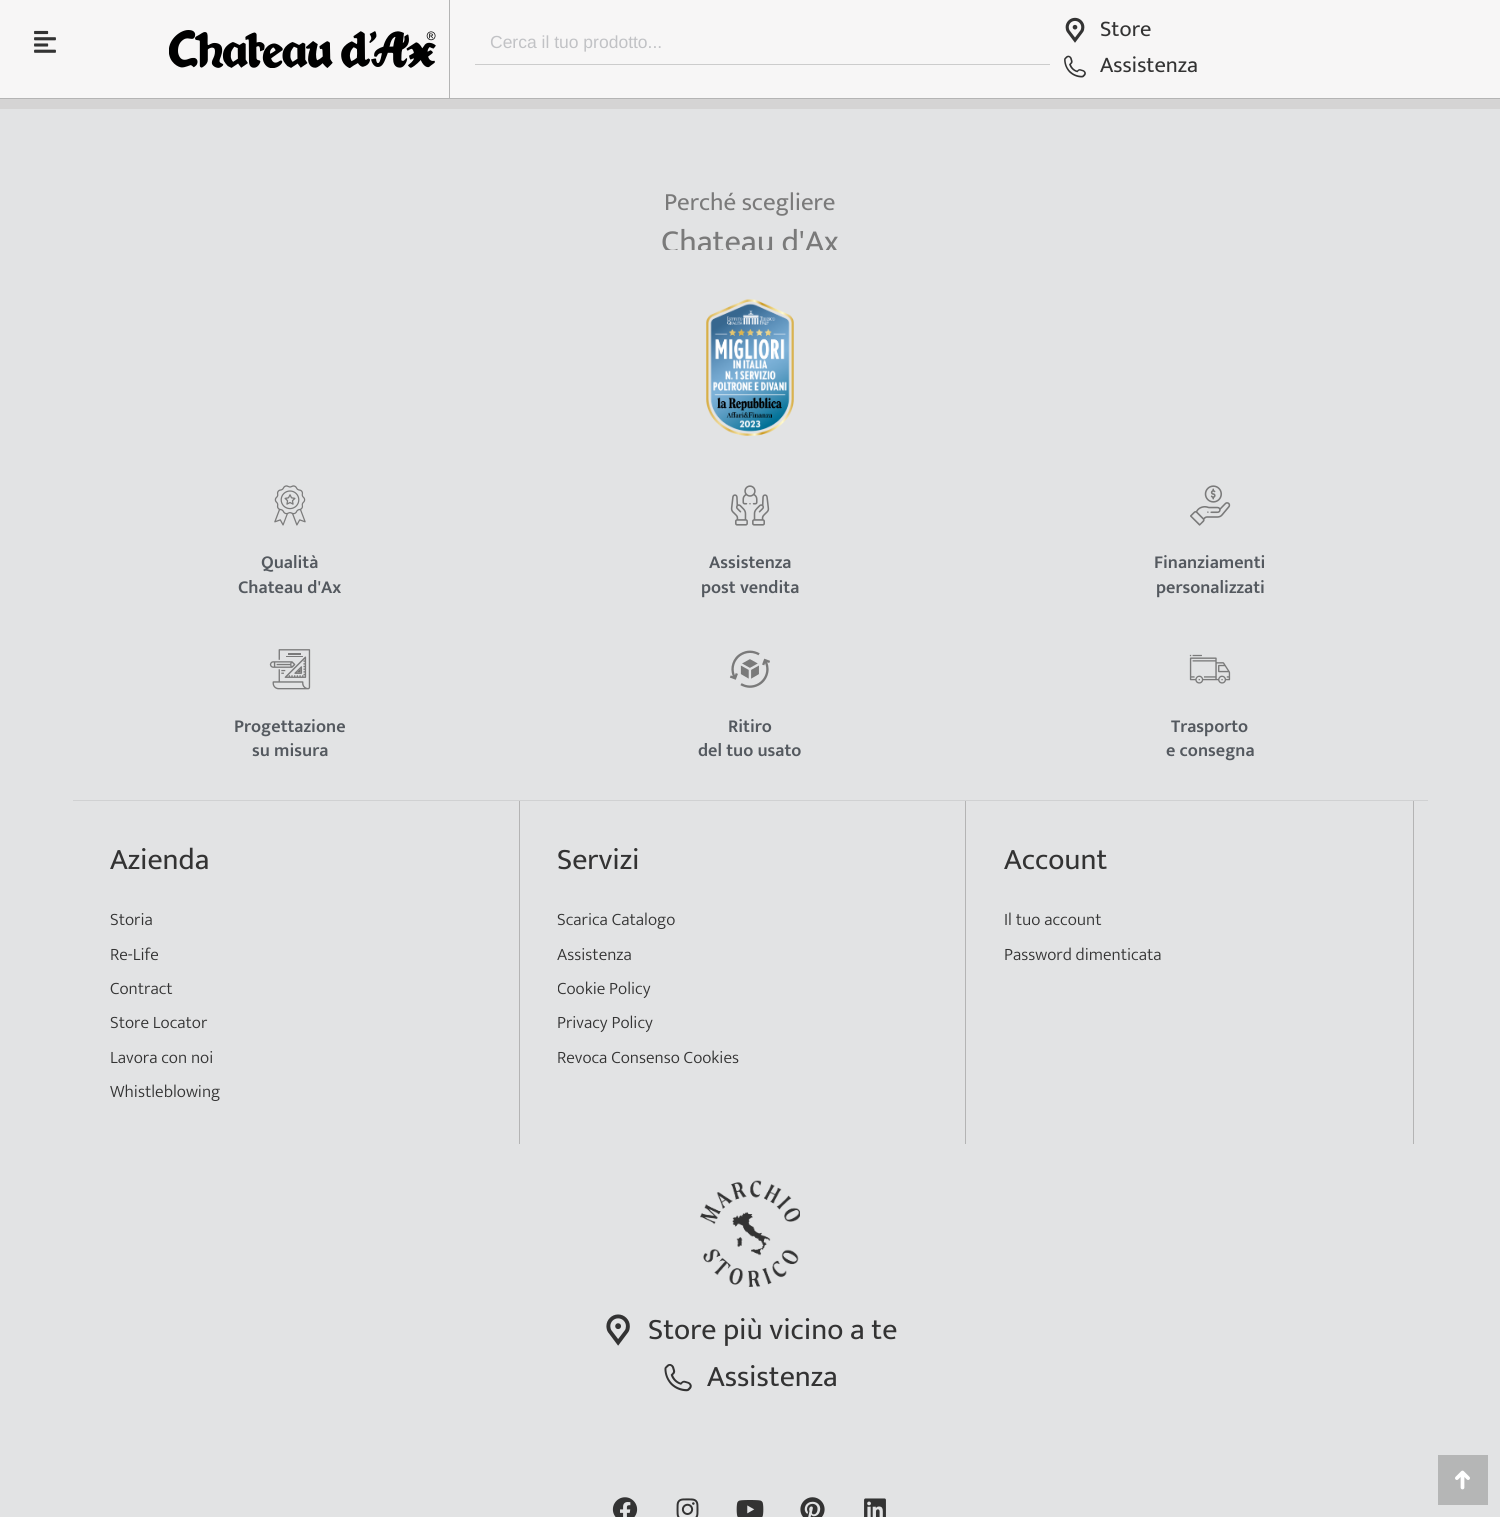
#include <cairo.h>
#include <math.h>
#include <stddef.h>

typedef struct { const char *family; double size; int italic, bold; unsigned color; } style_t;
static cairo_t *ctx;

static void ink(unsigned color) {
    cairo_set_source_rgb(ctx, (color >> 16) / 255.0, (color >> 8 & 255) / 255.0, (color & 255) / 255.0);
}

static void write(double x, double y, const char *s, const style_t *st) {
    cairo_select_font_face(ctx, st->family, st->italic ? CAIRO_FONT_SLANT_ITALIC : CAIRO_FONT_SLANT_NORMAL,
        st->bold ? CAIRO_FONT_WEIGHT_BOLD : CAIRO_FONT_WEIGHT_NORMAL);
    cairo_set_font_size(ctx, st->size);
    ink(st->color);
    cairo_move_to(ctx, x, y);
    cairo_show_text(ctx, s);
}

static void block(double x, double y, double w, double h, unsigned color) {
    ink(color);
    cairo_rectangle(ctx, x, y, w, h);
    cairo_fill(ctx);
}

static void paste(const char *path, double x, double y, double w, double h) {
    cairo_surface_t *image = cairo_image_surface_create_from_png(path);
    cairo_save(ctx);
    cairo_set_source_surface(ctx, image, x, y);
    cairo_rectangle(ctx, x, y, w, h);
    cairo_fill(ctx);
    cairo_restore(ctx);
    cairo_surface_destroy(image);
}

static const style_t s1 = {"Liberation Sans", 17.5, 0, 0, 0xc1c2c5};
static const style_t s2 = {"Mukta", 22.5, 0, 0, 0x333333};
static const style_t s3 = {"Mukta", 25, 0, 0, 0x7a7a7a};
static const style_t s4 = {"Mukta", 32.5, 0, 0, 0x7a7a7a};
static const style_t s5 = {"Mukta SemiBold", 18.25, 0, 0, 0x54595f};
static const style_t s6 = {"Mukta", 30, 0, 0, 0x333333};
static const style_t s7 = {"Mukta Light", 17.5, 0, 0, 0x333333};

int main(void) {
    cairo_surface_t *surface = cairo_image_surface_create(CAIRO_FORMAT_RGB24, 1500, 1517);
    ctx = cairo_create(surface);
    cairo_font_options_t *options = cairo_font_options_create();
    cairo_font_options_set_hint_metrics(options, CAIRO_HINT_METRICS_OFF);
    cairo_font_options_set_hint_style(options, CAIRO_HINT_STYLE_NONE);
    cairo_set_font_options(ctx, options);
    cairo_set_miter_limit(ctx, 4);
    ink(0xd5d4d4);
    cairo_paint(ctx);
    block(0, 0, 1500, 98, 0xf7f6f6);
    block(0, 98, 1500, 1, 0xb4b4b4);
    block(449, 0, 1, 98, 0xb4b4b4);
    paste("pic1.png", 34, 30, 22, 23);
    paste("pic2.png", 169, 30, 267, 38);
    block(475, 64, 575, 1, 0xcccccc);
    write(490, 48, "Cerca il tuo prodotto...", &s1);
    paste("pic3.png", 1065, 17, 20, 26);
    write(1100, 36, "Store", &s2);
    paste("pic4.png", 1064, 55, 22, 23);
    write(1100, 72, "Assistenza", &s2);
    block(0, 109, 1500, 1408, 0xe2e3e4);
    block(73, 800, 1355, 1, 0xd0d1d2);
    write(664, 210, "Perché scegliere", &s3);
    cairo_save(ctx);
    cairo_rectangle(ctx, 110, 184, 1280, 66);
    cairo_clip(ctx);
    write(661, 252, "Chateau d'Ax", &s4);
    cairo_restore(ctx);
    paste("pic5.png", 706, 299, 88, 137);
    paste("pic6.png", 274, 485, 32, 41);
    write(261, 568, "Qualità", &s5);
    write(238, 593, "Chateau d'Ax", &s5);
    paste("pic7.png", 730, 485, 40, 41);
    write(709, 568, "Assistenza", &s5);
    write(701, 593, "post vendita", &s5);
    paste("pic8.png", 1190, 485, 41, 41);
    write(1154, 568, "Finanziamenti", &s5);
    write(1156, 593, "personalizzati", &s5);
    paste("pic9.png", 269, 649, 42, 41);
    write(234, 732, "Progettazione", &s5);
    write(252, 756, "su misura", &s5);
    paste("pic10.png", 729, 650, 41, 38);
    write(728, 732, "Ritiro", &s5);
    write(698, 756, "del tuo usato", &s5);
    paste("pic11.png", 1189, 654, 42, 30);
    write(1171, 732, "Trasporto", &s5);
    write(1166, 756, "e consegna", &s5);
    block(519, 801, 1, 343, 0xb4b4b4);
    write(110, 869, "Azienda", &s6);
    write(110, 925, "Storia", &s7);
    write(110, 960, "Re-Life", &s7);
    write(110, 994, "Contract", &s7);
    write(110, 1028, "Store Locator", &s7);
    write(110, 1063, "Lavora con noi", &s7);
    write(110, 1097, "Whistleblowing", &s7);
    block(965, 801, 1, 343, 0xb4b4b4);
    write(557, 869, "Servizi", &s6);
    write(557, 925, "Scarica Catalogo", &s7);
    write(557, 960, "Assistenza", &s7);
    cairo_save(ctx);
    cairo_rectangle(ctx, 558, 839, 370, 232);
    cairo_clip(ctx);
    write(557, 994, "Cookie Policy", &s7);
    cairo_restore(ctx);
    write(557, 1028, "Privacy Policy", &s7);
    write(557, 1063, "Revoca Consenso Cookies", &s7);
    block(1413, 801, 1, 343, 0xb4b4b4);
    write(1004, 869, "Account", &s6);
    write(1004, 925, "Il tuo account", &s7);
    write(1004, 960, "Password dimenticata", &s7);
    paste("pic12.png", 700, 1180, 100, 107);
    paste("pic13.png", 606, 1314, 24, 32);
    write(648, 1339, "Store più vicino a te", &s6);
    paste("pic14.png", 664, 1364, 28, 28);
    write(707, 1386, "Assistenza", &s6);
    paste("pic15.png", 612, 1497, 26, 20);
    paste("pic16.png", 676, 1498, 23, 19);
    paste("pic17.png", 736, 1500, 28, 17);
    paste("pic18.png", 800, 1497, 25, 20);
    paste("pic19.png", 864, 1498, 22, 19);
    block(1438, 1455, 50, 50, 0xb5b6b6);
    paste("pic20.png", 1455, 1470, 15, 20);
    cairo_surface_write_to_png(surface, "screenshot.png");
    cairo_font_options_destroy(options);
    cairo_destroy(ctx);
    cairo_surface_destroy(surface);
    return 0;
}
